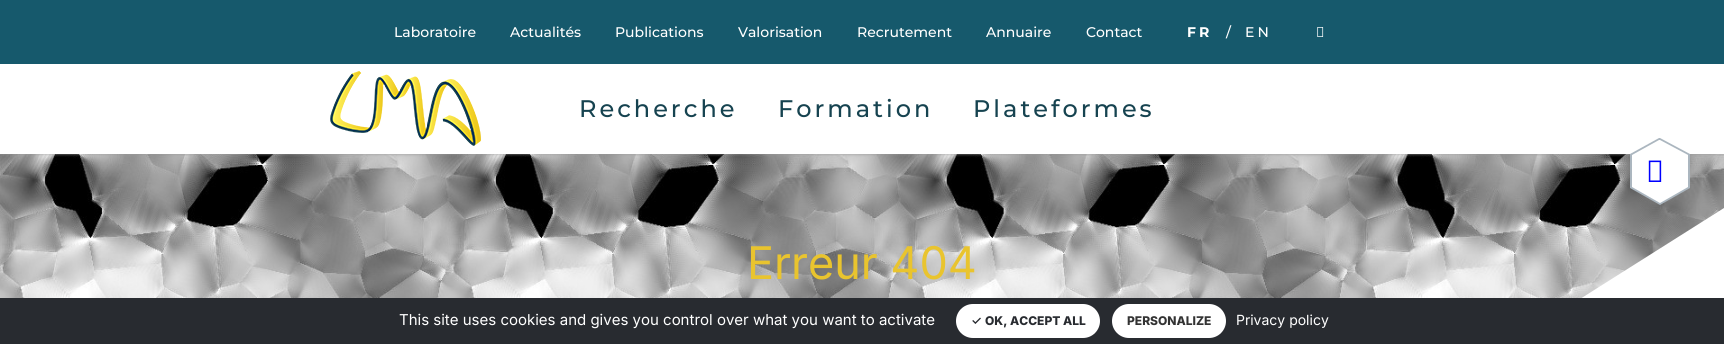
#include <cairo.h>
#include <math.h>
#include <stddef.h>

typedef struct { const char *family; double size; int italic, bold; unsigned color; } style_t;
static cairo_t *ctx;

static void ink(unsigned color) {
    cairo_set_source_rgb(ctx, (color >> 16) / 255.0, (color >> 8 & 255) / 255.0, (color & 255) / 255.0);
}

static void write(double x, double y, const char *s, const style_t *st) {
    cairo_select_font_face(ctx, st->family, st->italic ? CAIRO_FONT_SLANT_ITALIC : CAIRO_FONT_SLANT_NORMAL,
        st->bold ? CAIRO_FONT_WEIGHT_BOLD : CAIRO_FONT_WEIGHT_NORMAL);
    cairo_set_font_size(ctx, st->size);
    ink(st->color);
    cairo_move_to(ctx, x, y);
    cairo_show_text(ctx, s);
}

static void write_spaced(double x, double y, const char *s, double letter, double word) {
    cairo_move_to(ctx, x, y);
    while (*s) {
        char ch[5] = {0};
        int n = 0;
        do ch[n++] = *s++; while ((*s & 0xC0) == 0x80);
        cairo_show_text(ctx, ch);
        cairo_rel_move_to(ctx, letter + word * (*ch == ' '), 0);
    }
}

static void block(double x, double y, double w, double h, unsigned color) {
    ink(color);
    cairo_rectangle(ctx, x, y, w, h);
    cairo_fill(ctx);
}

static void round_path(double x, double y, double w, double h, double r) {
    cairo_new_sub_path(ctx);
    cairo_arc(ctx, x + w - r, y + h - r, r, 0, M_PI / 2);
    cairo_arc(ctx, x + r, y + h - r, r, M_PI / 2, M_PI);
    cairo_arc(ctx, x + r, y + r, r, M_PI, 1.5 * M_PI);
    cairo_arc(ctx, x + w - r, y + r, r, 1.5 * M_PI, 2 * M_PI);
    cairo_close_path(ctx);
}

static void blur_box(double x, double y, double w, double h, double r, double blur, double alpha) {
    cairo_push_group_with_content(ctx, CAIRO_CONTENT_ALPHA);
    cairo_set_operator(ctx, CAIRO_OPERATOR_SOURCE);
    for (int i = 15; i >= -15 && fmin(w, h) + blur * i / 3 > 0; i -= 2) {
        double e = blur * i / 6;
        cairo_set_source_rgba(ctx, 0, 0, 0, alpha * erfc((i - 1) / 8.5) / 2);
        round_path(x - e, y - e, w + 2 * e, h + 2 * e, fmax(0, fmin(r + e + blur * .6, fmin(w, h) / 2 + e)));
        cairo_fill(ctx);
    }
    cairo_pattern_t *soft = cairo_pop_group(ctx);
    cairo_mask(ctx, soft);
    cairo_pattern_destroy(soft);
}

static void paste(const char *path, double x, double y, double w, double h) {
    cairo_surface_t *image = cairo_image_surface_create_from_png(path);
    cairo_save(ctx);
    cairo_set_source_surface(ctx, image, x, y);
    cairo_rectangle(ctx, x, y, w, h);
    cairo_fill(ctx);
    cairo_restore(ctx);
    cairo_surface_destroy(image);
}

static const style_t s1 = {"Montserrat Medium", 14, 0, 0, 0xffffff};
static const style_t s2 = {"Inter", 45, 0, 0, 0xe9c42e};
static const style_t s3 = {"Inter", 15, 0, 0, 0xffffff};
static const style_t s4 = {"Inter", 12, 0, 1, 0x282b30};
static const style_t s5 = {"Inter ExtraBold", 12, 0, 0, 0x282b30};
static const style_t s6 = {"Inter ExtraBold", 12, 0, 0, 0x333333};
static const style_t s7 = {"Inter", 14, 0, 0, 0xffffff};

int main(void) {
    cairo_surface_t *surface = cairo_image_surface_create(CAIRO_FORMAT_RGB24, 1724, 344);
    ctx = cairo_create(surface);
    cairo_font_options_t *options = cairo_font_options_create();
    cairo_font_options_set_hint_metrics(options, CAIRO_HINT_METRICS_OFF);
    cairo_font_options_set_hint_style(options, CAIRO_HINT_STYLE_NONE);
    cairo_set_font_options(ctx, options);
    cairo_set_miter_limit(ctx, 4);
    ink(0xffffff);
    cairo_paint(ctx);
    paste("pic4.png", 0, 154, 1724, 144);
    cairo_save(ctx);
    cairo_rectangle(ctx, 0, 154, 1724, 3);
    cairo_clip(ctx);
    ink(0x999999);
    blur_box(0, 0, 1724, 154, 0, 1.5, 1);
    cairo_restore(ctx);
    block(0, 0, 1724, 64, 0x16596c);
    write(394, 37, "Laboratoire", &s1);
    write(510, 37, "Actualités", &s1);
    write(615, 37, "Publications", &s1);
    write(738, 37, "Valorisation", &s1);
    write(857, 37, "Recrutement", &s1);
    write(986, 37, "Annuaire", &s1);
    write(1086, 37, "Contact", &s1);
    cairo_select_font_face(ctx, "Montserrat", CAIRO_FONT_SLANT_NORMAL, CAIRO_FONT_WEIGHT_BOLD);
    write_spaced(1187, 37, "FR", 3, 0);
    write(1226, 37, "/", &s1);
    write_spaced(1245, 37, "EN", 3, 0);
    paste("pic1.png", 1317, 27, 7, 10);
    paste("pic2.png", 330, 71, 151, 75);
    cairo_set_font_size(ctx, 24);
    ink(0x164350);
    write_spaced(579, 117, "Recherche", 3, 0);
    write_spaced(778, 117, "Formation", 3, 0);
    write_spaced(973, 117, "Plateformes", 3, 0);
    ink(0xabb6bf);
    cairo_new_path(ctx);
    cairo_move_to(ctx, 1630, 154);
    cairo_line_to(ctx, 1659, 138);
    cairo_line_to(ctx, 1660, 138);
    cairo_line_to(ctx, 1690, 154);
    cairo_line_to(ctx, 1690, 188);
    cairo_line_to(ctx, 1660, 205);
    cairo_line_to(ctx, 1630, 188);
    cairo_close_path(ctx);
    cairo_fill(ctx);
    ink(0xffffff);
    cairo_new_path(ctx);
    cairo_move_to(ctx, 1632, 155);
    cairo_line_to(ctx, 1659, 140);
    cairo_line_to(ctx, 1660, 140);
    cairo_line_to(ctx, 1688, 155);
    cairo_line_to(ctx, 1688, 187);
    cairo_line_to(ctx, 1660, 203);
    cairo_line_to(ctx, 1632, 187);
    cairo_close_path(ctx);
    cairo_fill(ctx);
    paste("pic3.png", 1648, 160, 14, 22);
    write(747, 279, "Erreur 404", &s2);
    ink(0xffffff);
    cairo_new_path(ctx);
    cairo_move_to(ctx, 1724, 208);
    cairo_line_to(ctx, 1466, 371);
    cairo_line_to(ctx, 1724, 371);
    cairo_close_path(ctx);
    cairo_fill(ctx);
    block(0, 298, 1724, 46, 0x282b30);
    write(399, 325, "This site uses cookies and gives you control over what you want to activate", &s3);
    round_path(956, 304, 144, 34, 17);
    cairo_fill(ctx);
    write(971, 325, "✓", &s4);
    write(985, 325, "OK, ACCEPT ALL", &s5);
    ink(0xffffff);
    round_path(1112, 304, 114, 34, 17);
    cairo_fill(ctx);
    write(1127, 325, "PERSONALIZE", &s6);
    write(1236, 325, "Privacy policy", &s7);
    cairo_surface_write_to_png(surface, "screenshot.png");
    cairo_font_options_destroy(options);
    cairo_destroy(ctx);
    cairo_surface_destroy(surface);
    return 0;
}
